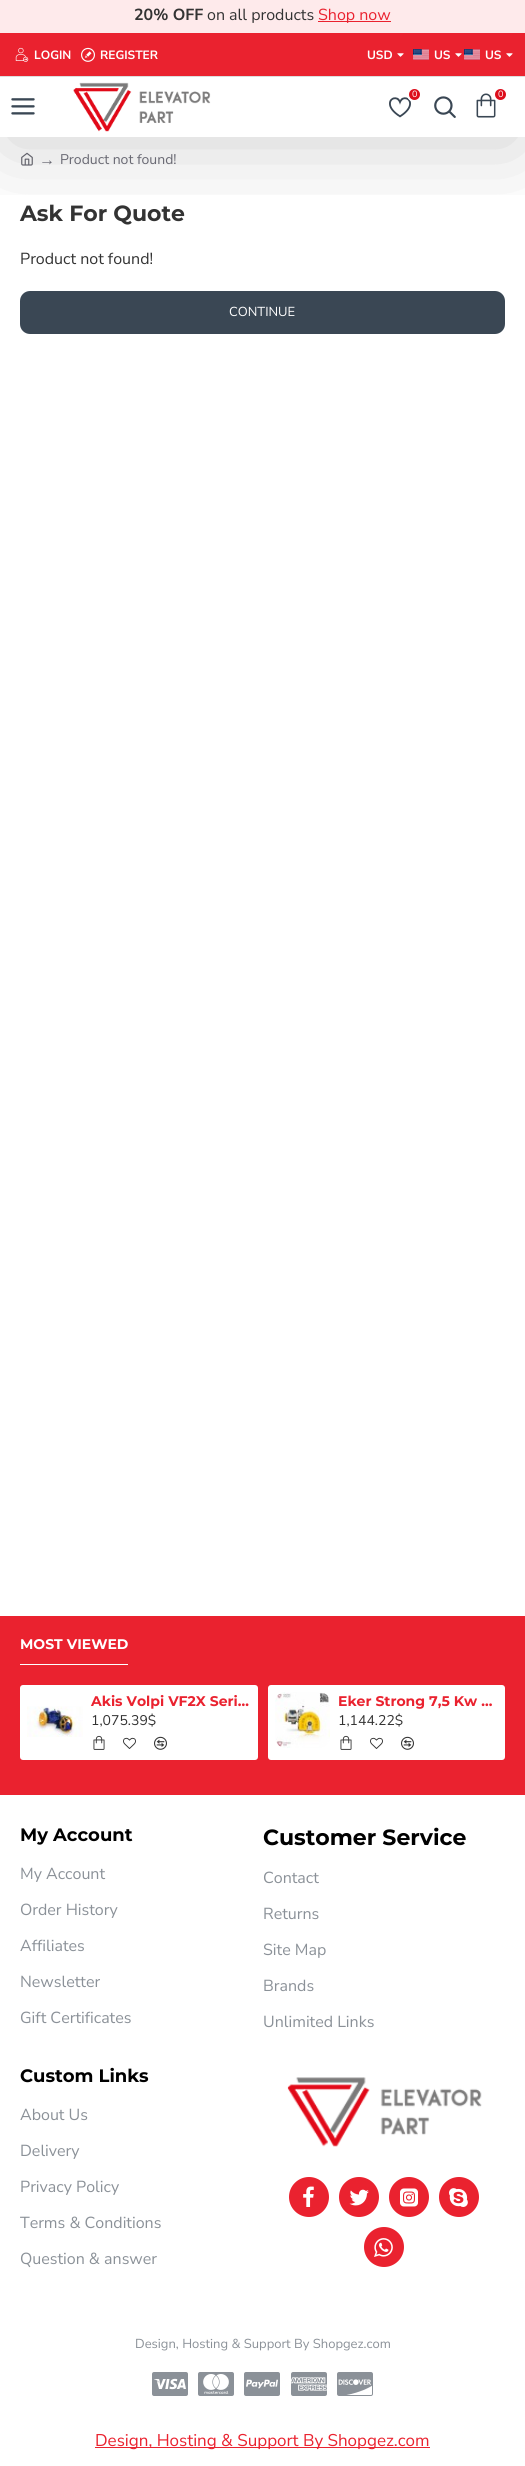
#include <cairo.h>
#include <math.h>
#include <stddef.h>

typedef struct { const char *family; double size; int italic, bold; unsigned color; } style_t;
static cairo_t *ctx;

static void ink(unsigned color) {
    cairo_set_source_rgb(ctx, (color >> 16) / 255.0, (color >> 8 & 255) / 255.0, (color & 255) / 255.0);
}

static void write(double x, double y, const char *s, const style_t *st) {
    cairo_select_font_face(ctx, st->family, st->italic ? CAIRO_FONT_SLANT_ITALIC : CAIRO_FONT_SLANT_NORMAL,
        st->bold ? CAIRO_FONT_WEIGHT_BOLD : CAIRO_FONT_WEIGHT_NORMAL);
    cairo_set_font_size(ctx, st->size);
    ink(st->color);
    cairo_move_to(ctx, x, y);
    cairo_show_text(ctx, s);
}

static void block(double x, double y, double w, double h, unsigned color) {
    ink(color);
    cairo_rectangle(ctx, x, y, w, h);
    cairo_fill(ctx);
}

static void round_path(double x, double y, double w, double h, double r) {
    cairo_new_sub_path(ctx);
    cairo_arc(ctx, x + w - r, y + h - r, r, 0, M_PI / 2);
    cairo_arc(ctx, x + r, y + h - r, r, M_PI / 2, M_PI);
    cairo_arc(ctx, x + r, y + r, r, M_PI, 1.5 * M_PI);
    cairo_arc(ctx, x + w - r, y + r, r, 1.5 * M_PI, 2 * M_PI);
    cairo_close_path(ctx);
}

static void blur_box(double x, double y, double w, double h, double r, double blur, double alpha) {
    cairo_push_group_with_content(ctx, CAIRO_CONTENT_ALPHA);
    cairo_set_operator(ctx, CAIRO_OPERATOR_SOURCE);
    for (int i = 15; i >= -15 && fmin(w, h) + blur * i / 3 > 0; i -= 2) {
        double e = blur * i / 6;
        cairo_set_source_rgba(ctx, 0, 0, 0, alpha * erfc((i - 1) / 8.5) / 2);
        round_path(x - e, y - e, w + 2 * e, h + 2 * e, fmax(0, fmin(r + e + blur * .6, fmin(w, h) / 2 + e)));
        cairo_fill(ctx);
    }
    cairo_pattern_t *soft = cairo_pop_group(ctx);
    cairo_mask(ctx, soft);
    cairo_pattern_destroy(soft);
}

static void paste(const char *path, double x, double y, double w, double h) {
    cairo_surface_t *image = cairo_image_surface_create_from_png(path);
    cairo_save(ctx);
    cairo_set_source_surface(ctx, image, x, y);
    cairo_rectangle(ctx, x, y, w, h);
    cairo_fill(ctx);
    cairo_restore(ctx);
    cairo_surface_destroy(image);
}

static const style_t s1 = {"Nunito Sans", 16, 0, 1, 0x333333};
static const style_t s2 = {"Nunito Sans", 16, 0, 0, 0x333333};
static const style_t s3 = {"Nunito Sans", 16, 0, 0, 0xea222f};
static const style_t s4 = {"Nunito Sans", 12, 0, 1, 0xffffff};
static const style_t s5 = {"Nunito Sans", 9, 0, 0, 0xffffff};
static const style_t s6 = {"Liberation Serif", 16, 0, 0, 0x696973};
static const style_t s7 = {"Nunito Sans", 14, 0, 0, 0x696973};
static const style_t s8 = {"Montserrat", 22, 0, 1, 0x333333};
static const style_t s9 = {"Nunito Sans", 13, 0, 0, 0xffffff};
static const style_t s10 = {"Montserrat", 14, 0, 1, 0xffffff};
static const style_t s11 = {"Montserrat", 14, 0, 1, 0xea222f};
static const style_t s12 = {"Nunito Sans", 14, 0, 0, 0x333333};
static const style_t s13 = {"Montserrat", 18, 0, 1, 0x000000};
static const style_t s14 = {"Nunito Sans", 16, 0, 0, 0x8b9198};
static const style_t s15 = {"Montserrat", 22, 0, 1, 0x000000};
static const style_t s16 = {"Nunito Sans", 13, 0, 0, 0x8b9198};
static const style_t s17 = {"Nunito Sans", 17, 0, 0, 0xea222f};

int main(void) {
    cairo_surface_t *surface = cairo_image_surface_create(CAIRO_FORMAT_RGB24, 525, 2466);
    ctx = cairo_create(surface);
    cairo_font_options_t *options = cairo_font_options_create();
    cairo_font_options_set_hint_metrics(options, CAIRO_HINT_METRICS_OFF);
    cairo_font_options_set_hint_style(options, CAIRO_HINT_STYLE_NONE);
    cairo_set_font_options(ctx, options);
    cairo_set_miter_limit(ctx, 4);
    ink(0xffffff);
    cairo_paint(ctx);
    block(0, 0, 525, 33, 0xfeeaeb);
    write(134, 20, "20% OFF", &s1);
    write(207, 20, "on all products", &s2);
    block(318, 21, 73, 1, 0xea222f);
    write(318, 20, "Shop now", &s3);
    paste("pic12.png", 21, 152, 12, 14);
    cairo_save(ctx);
    cairo_rectangle(ctx, 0, 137, 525, 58);
    cairo_clip(ctx);
    ink(0x000000);
    blur_box(10, 102, 505, 40, 0, 45, 0.2);
    cairo_restore(ctx);
    block(0, 33, 525, 43, 0xea222f);
    block(0, 76, 525, 1, 0xdddddd);
    paste("pic1.png", 15, 47, 14, 15);
    write(34, 59, "LOGIN", &s4);
    paste("pic2.png", 81, 47, 14, 15);
    write(100, 59, "REGISTER", &s4);
    write(367, 59, "USD", &s4);
    paste("pic3.png", 397, 53, 7, 4);
    paste("pic4.png", 413, 49, 16, 11);
    write(434, 59, "US", &s4);
    paste("pic5.png", 455, 53, 7, 4);
    paste("pic4.png", 464, 49, 16, 11);
    write(485, 59, "US", &s4);
    paste("pic6.png", 506, 53, 7, 4);
    paste("pic7.png", 73, 82, 138, 50);
    paste("pic8.png", 389, 97, 22, 21);
    ink(0xdd0e1c);
    cairo_arc(ctx, 414.5, 94.5, 6.5, 0, 2 * M_PI);
    cairo_fill_preserve(ctx);
    ink(0xffffff);
    cairo_stroke(ctx);
    write(412, 97, "0", &s5);
    paste("pic9.png", 476, 93, 20, 25);
    ink(0xdd0e1c);
    cairo_arc(ctx, 500.5, 94.5, 6.5, 0, 2 * M_PI);
    cairo_fill_preserve(ctx);
    ink(0xffffff);
    cairo_stroke(ctx);
    write(498, 97, "0", &s5);
    paste("pic10.png", 11, 98, 24, 17);
    paste("pic11.png", 434, 96, 22, 22);
    write(39, 165, "→", &s6);
    write(60, 164, "Product not found!", &s7);
    write(20, 221, "Ask For Quote", &s8);
    write(20, 264, "Product not found!", &s2);
    ink(0x3a4754);
    round_path(20, 291, 485, 43, 10);
    cairo_fill(ctx);
    write(229, 316, "CONTINUE", &s9);
    block(0, 1616, 525, 179, 0xea222f);
    block(20, 1664, 108, 1, 0xffffff);
    write(20, 1649, "MOST VIEWED", &s10);
    round_path(20, 1685, 238, 75, 3);
    cairo_fill(ctx);
    paste("pic13.png", 27, 1706, 56, 31);
    write(91, 1706, "Akis Volpi VF2X Seri…", &s11);
    write(91, 1725, "1,075.39$", &s12);
    paste("pic14.png", 93, 1735, 12, 15);
    paste("pic15.png", 123, 1737, 13, 12);
    paste("pic16.png", 154, 1736, 13, 14);
    ink(0xffffff);
    round_path(268, 1685, 237, 75, 3);
    cairo_fill(ctx);
    paste("pic17.png", 275, 1692, 55, 56);
    write(338, 1706, "Eker Strong 7,5 Kw …", &s11);
    write(338, 1725, "1,144.22$", &s12);
    paste("pic14.png", 340, 1735, 12, 15);
    paste("pic15.png", 370, 1737, 13, 12);
    paste("pic16.png", 401, 1736, 13, 14);
    write(20, 1841, "My Account", &s13);
    write(20, 1879, "My Account", &s14);
    write(20, 1915, "Order History", &s14);
    write(20, 1951, "Affiliates", &s14);
    write(20, 1987, "Newsletter", &s14);
    write(20, 2023, "Gift Certificates", &s14);
    write(263, 1845, "Customer Service", &s15);
    write(263, 1883, "Contact", &s14);
    write(263, 1919, "Returns", &s14);
    write(263, 1955, "Site Map", &s14);
    write(263, 1991, "Brands", &s14);
    write(263, 2027, "Unlimited Links", &s14);
    write(20, 2082, "Custom Links", &s13);
    write(20, 2120, "About Us", &s14);
    write(20, 2156, "Delivery", &s14);
    write(20, 2192, "Privacy Policy", &s14);
    write(20, 2228, "Terms & Conditions", &s14);
    write(20, 2264, "Question & answer", &s14);
    paste("pic18.png", 287, 2077, 195, 70);
    ink(0xea222f);
    cairo_arc(ctx, 309, 2197, 20, 0, 2 * M_PI);
    cairo_fill(ctx);
    paste("pic19.png", 303, 2186, 11, 21);
    cairo_arc(ctx, 359, 2197, 20, 0, 2 * M_PI);
    cairo_fill(ctx);
    paste("pic20.png", 349, 2189, 20, 17);
    cairo_arc(ctx, 409, 2197, 20, 0, 2 * M_PI);
    cairo_fill(ctx);
    paste("pic21.png", 400, 2188, 18, 19);
    cairo_arc(ctx, 459, 2197, 20, 0, 2 * M_PI);
    cairo_fill(ctx);
    paste("pic22.png", 449, 2188, 19, 19);
    cairo_arc(ctx, 384, 2247, 20, 0, 2 * M_PI);
    cairo_fill(ctx);
    paste("pic23.png", 374, 2238, 19, 19);
    write(135, 2348, "Design, Hosting & Support By Shopgez.com", &s16);
    paste("pic24.png", 152, 2372, 36, 24);
    paste("pic25.png", 198, 2372, 36, 24);
    paste("pic26.png", 244, 2372, 36, 24);
    paste("pic27.png", 291, 2372, 36, 24);
    paste("pic28.png", 337, 2372, 36, 24);
    block(95, 2447, 335, 1, 0xea222f);
    write(95, 2446, "Design, Hosting & Support By Shopgez.com", &s17);
    cairo_surface_write_to_png(surface, "screenshot.png");
    cairo_font_options_destroy(options);
    cairo_destroy(ctx);
    cairo_surface_destroy(surface);
    return 0;
}
